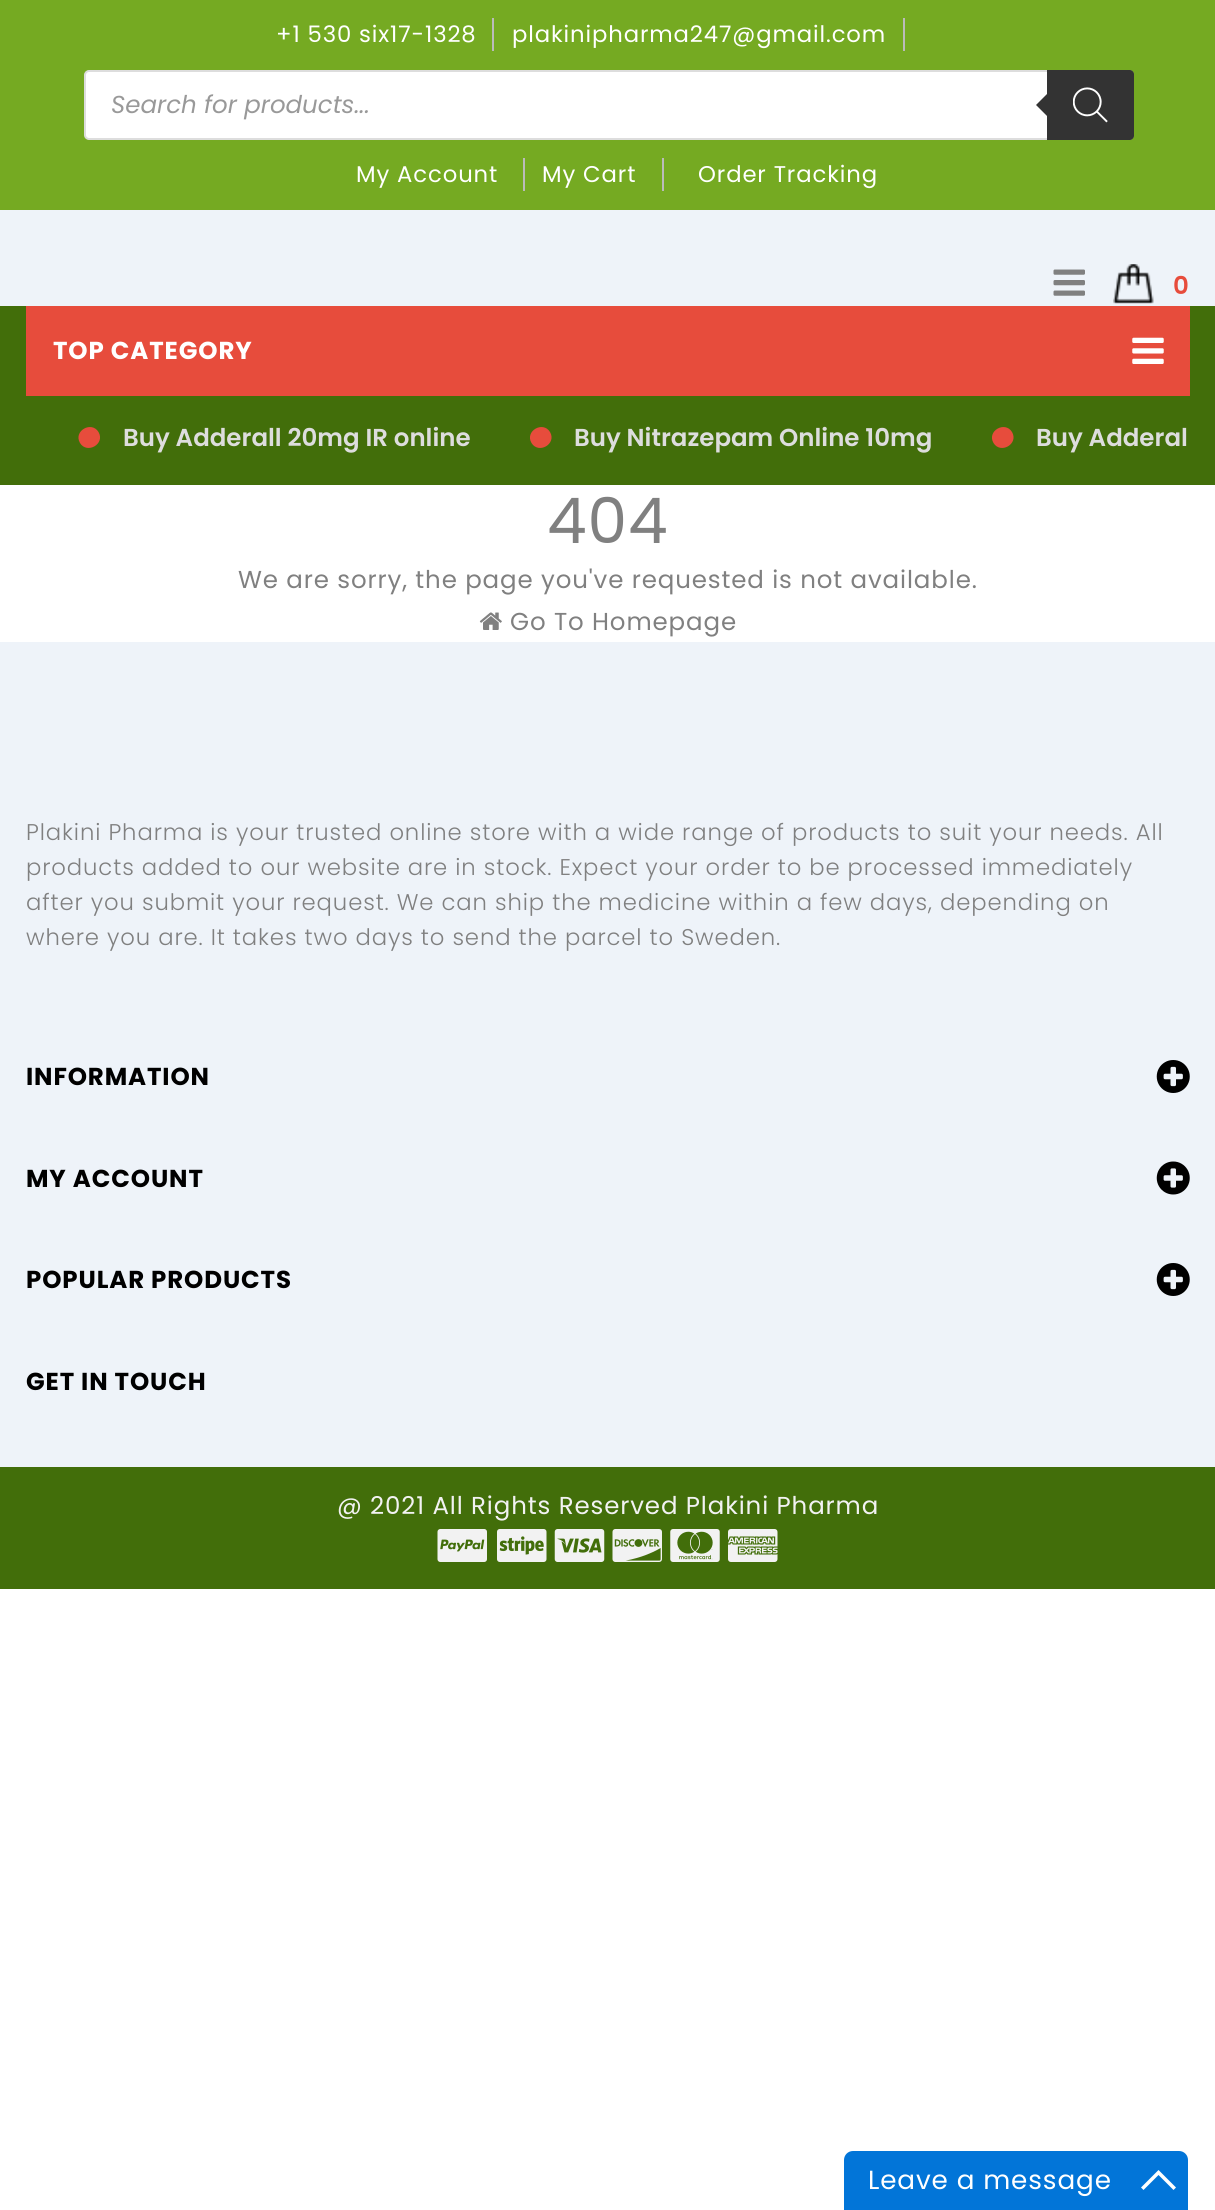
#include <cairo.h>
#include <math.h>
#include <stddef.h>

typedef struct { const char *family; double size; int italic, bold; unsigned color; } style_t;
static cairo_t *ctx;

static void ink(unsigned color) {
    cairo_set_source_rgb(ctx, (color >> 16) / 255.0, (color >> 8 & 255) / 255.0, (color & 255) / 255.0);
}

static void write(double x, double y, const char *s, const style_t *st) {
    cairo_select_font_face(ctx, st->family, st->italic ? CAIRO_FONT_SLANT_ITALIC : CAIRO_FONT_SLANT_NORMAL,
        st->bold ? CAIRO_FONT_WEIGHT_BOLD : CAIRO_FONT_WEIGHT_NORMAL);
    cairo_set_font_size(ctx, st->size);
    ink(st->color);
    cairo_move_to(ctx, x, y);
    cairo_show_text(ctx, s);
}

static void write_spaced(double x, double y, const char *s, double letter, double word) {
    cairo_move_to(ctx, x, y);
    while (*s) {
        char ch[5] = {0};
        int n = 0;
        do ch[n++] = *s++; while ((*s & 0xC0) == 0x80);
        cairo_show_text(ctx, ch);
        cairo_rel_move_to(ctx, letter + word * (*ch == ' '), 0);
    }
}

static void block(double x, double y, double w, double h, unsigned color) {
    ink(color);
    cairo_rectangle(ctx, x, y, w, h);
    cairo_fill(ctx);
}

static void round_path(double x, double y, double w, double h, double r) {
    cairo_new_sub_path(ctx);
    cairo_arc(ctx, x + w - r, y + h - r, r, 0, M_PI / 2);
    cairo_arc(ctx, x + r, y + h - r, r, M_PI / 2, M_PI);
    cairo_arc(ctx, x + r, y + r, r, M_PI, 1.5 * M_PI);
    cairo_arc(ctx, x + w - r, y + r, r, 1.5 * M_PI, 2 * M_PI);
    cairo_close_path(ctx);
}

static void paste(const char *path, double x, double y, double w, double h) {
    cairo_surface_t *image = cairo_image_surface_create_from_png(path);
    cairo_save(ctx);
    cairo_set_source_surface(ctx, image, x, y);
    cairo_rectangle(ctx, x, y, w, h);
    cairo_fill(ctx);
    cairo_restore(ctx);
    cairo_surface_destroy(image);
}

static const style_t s1 = {"Poppins", 24.5, 1, 0, 0x999999};
static const style_t s2 = {"Poppins SemiBold", 24.5, 0, 0, 0xdddddd};

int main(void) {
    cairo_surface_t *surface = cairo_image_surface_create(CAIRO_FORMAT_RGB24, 1215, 2210);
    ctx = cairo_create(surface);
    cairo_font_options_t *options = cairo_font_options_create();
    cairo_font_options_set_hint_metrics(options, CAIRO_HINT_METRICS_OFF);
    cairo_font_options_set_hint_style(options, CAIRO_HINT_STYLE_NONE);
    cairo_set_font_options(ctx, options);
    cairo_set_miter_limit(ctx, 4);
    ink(0xffffff);
    cairo_paint(ctx);
    block(0, 0, 1215, 210, 0x75aa22);
    cairo_select_font_face(ctx, "Poppins", CAIRO_FONT_SLANT_NORMAL, CAIRO_FONT_WEIGHT_NORMAL);
    cairo_set_font_size(ctx, 22.75);
    ink(0xffffff);
    write_spaced(276, 42, "+1 530 six17-1328", 0.88, 0);
    write_spaced(512, 42, "plakinipharma247@gmail.com", 0.88, 0);
    block(492, 18, 2, 33, 0xbbbbbb);
    block(903, 18, 2, 33, 0xbbbbbb);
    ink(0xffffff);
    round_path(85, 71, 1048, 68, 4);
    cairo_fill_preserve(ctx);
    ink(0xdddddd);
    cairo_stroke(ctx);
    write(111, 113, "Search for products...", &s1);
    ink(0x333333);
    cairo_new_path(ctx);
    cairo_move_to(ctx, 1047, 70);
    cairo_line_to(ctx, 1130, 70);
    cairo_curve_to(ctx, 1132, 70, 1134, 72, 1134, 74);
    cairo_line_to(ctx, 1134, 136);
    cairo_curve_to(ctx, 1134, 138, 1132, 140, 1130, 140);
    cairo_line_to(ctx, 1047, 140);
    cairo_close_path(ctx);
    cairo_fill(ctx);
    cairo_new_path(ctx);
    cairo_move_to(ctx, 1050, 91);
    cairo_line_to(ctx, 1050, 119);
    cairo_line_to(ctx, 1036, 105);
    cairo_close_path(ctx);
    cairo_fill(ctx);
    paste("pic1.png", 1073, 87, 35, 36);
    cairo_select_font_face(ctx, "Poppins", CAIRO_FONT_SLANT_NORMAL, CAIRO_FONT_WEIGHT_NORMAL);
    cairo_set_font_size(ctx, 22.75);
    ink(0xffffff);
    write_spaced(356, 182, "My Account", 0.88, 0);
    write_spaced(542, 182, "My Cart", 0.88, 0);
    block(523, 158, 2, 33, 0xbbbbbb);
    ink(0xffffff);
    write_spaced(698, 182, "Order Tracking", 0.88, 0);
    block(662, 158, 2, 33, 0xbbbbbb);
    block(0, 210, 1215, 96, 0xeef3f9);
    paste("pic2.png", 1053, 269, 32, 27);
    paste("pic3.png", 1113, 264, 41, 40);
    cairo_select_font_face(ctx, "Poppins SemiBold", CAIRO_FONT_SLANT_NORMAL, CAIRO_FONT_WEIGHT_NORMAL);
    cairo_set_font_size(ctx, 24.5);
    ink(0xe74c3c);
    write_spaced(1173, 294, "0", 0.88, 0);
    block(0, 306, 1215, 179, 0x426e0a);
    block(26, 306, 1164, 90, 0xe74c3c);
    cairo_select_font_face(ctx, "Poppins", CAIRO_FONT_SLANT_NORMAL, CAIRO_FONT_WEIGHT_BOLD);
    ink(0xffffff);
    write_spaced(53, 359, "TOP CATEGORY", 0.88, 0);
    paste("pic4.png", 1132, 337, 32, 27);
    ink(0xe74c3c);
    cairo_new_path(ctx);
    cairo_move_to(ctx, 98.5, 432);
    cairo_curve_to(ctx, 105.5, 444, 87, 454.5, 80, 443);
    cairo_curve_to(ctx, 73, 431, 91.5, 420.5, 98.5, 432);
    cairo_close_path(ctx);
    cairo_fill(ctx);
    write(123, 446, "Buy Adderall 20mg IR online", &s2);
    ink(0xe74c3c);
    cairo_new_path(ctx);
    cairo_move_to(ctx, 550, 432);
    cairo_curve_to(ctx, 557, 444, 538.5, 454.5, 531.5, 443);
    cairo_curve_to(ctx, 524.5, 431, 543, 420.5, 550, 432);
    cairo_close_path(ctx);
    cairo_fill(ctx);
    write(574, 446, "Buy Nitrazepam Online 10mg", &s2);
    ink(0xe74c3c);
    cairo_new_path(ctx);
    cairo_move_to(ctx, 1012, 432);
    cairo_curve_to(ctx, 1019, 444, 1000.5, 454.5, 993.5, 443);
    cairo_curve_to(ctx, 986.5, 431, 1005, 420.5, 1012, 432);
    cairo_close_path(ctx);
    cairo_fill(ctx);
    write(1036, 446, "Buy Adderal", &s2);
    cairo_select_font_face(ctx, "Poppins", CAIRO_FONT_SLANT_NORMAL, CAIRO_FONT_WEIGHT_NORMAL);
    cairo_set_font_size(ctx, 63);
    ink(0x808080);
    write_spaced(547, 543, "404", 0.88, 0);
    cairo_set_font_size(ctx, 24.5);
    write_spaced(238, 588, "We are sorry, the page you've requested is not available.", 0.88, 0);
    paste("pic5.png", 479, 612, 23, 18);
    write_spaced(510, 630, "Go To Homepage", 0.88, 0);
    block(0, 642, 1215, 825, 0xeef3f9);
    cairo_select_font_face(ctx, "Poppins Light", CAIRO_FONT_SLANT_NORMAL, CAIRO_FONT_WEIGHT_NORMAL);
    cairo_set_font_size(ctx, 22.75);
    ink(0x808080);
    write_spaced(26, 840, "Plakini Pharma is your trusted online store with a wide range of products to suit your needs. All", 0.88, 0);
    write_spaced(26, 875, "products added to our website are in stock. Expect your order to be processed immediately", 0.88, 0);
    write_spaced(26, 910, "after you submit your request. We can ship the medicine within a few days, depending on", 0.88, 0);
    write_spaced(26, 945, "where you are. It takes two days to send the parcel to Sweden.", 0.88, 0);
    cairo_select_font_face(ctx, "Poppins", CAIRO_FONT_SLANT_NORMAL, CAIRO_FONT_WEIGHT_BOLD);
    cairo_set_font_size(ctx, 24.5);
    ink(0x000000);
    write_spaced(26, 1085, "INFORMATION", 0.88, 0);
    paste("pic6.png", 1156, 1060, 34, 33);
    write_spaced(26, 1187, "MY ACCOUNT", 0.88, 0);
    paste("pic7.png", 1156, 1161, 34, 34);
    write_spaced(26, 1288, "POPULAR PRODUCTS", 0.88, 0);
    paste("pic6.png", 1156, 1263, 34, 33);
    write_spaced(26, 1390, "GET IN TOUCH", 0.88, 0);
    block(0, 1467, 1215, 122, 0x426e0a);
    cairo_select_font_face(ctx, "Poppins", CAIRO_FONT_SLANT_NORMAL, CAIRO_FONT_WEIGHT_NORMAL);
    ink(0xf2f2f2);
    write_spaced(337, 1514, "@ 2021 All Rights Reserved Plakini Pharma", 0.88, 0);
    paste("pic8.png", 437, 1529, 50, 33);
    paste("pic9.png", 497, 1529, 50, 33);
    paste("pic10.png", 554, 1529, 51, 33);
    paste("pic11.png", 612, 1529, 50, 33);
    paste("pic12.png", 670, 1529, 50, 33);
    paste("pic13.png", 728, 1529, 50, 33);
    ink(0x0275d8);
    cairo_new_path(ctx);
    cairo_move_to(ctx, 853, 2151);
    cairo_line_to(ctx, 1179, 2151);
    cairo_curve_to(ctx, 1184, 2151, 1188, 2155, 1188, 2160);
    cairo_line_to(ctx, 1188, 2210);
    cairo_line_to(ctx, 844, 2210);
    cairo_line_to(ctx, 844, 2160);
    cairo_curve_to(ctx, 844, 2155, 848, 2151, 853, 2151);
    cairo_close_path(ctx);
    cairo_fill(ctx);
    cairo_set_font_size(ctx, 26.25);
    ink(0xffffff);
    write_spaced(868, 2189, "Leave a message", 0.88, 0);
    cairo_new_path(ctx);
    cairo_move_to(ctx, 1158.5, 2170);
    cairo_line_to(ctx, 1176, 2187.5);
    cairo_line_to(ctx, 1173.5, 2190);
    cairo_line_to(ctx, 1158.5, 2175);
    cairo_line_to(ctx, 1143.5, 2190);
    cairo_line_to(ctx, 1141, 2187.5);
    cairo_close_path(ctx);
    cairo_fill(ctx);
    cairo_surface_write_to_png(surface, "screenshot.png");
    cairo_font_options_destroy(options);
    cairo_destroy(ctx);
    cairo_surface_destroy(surface);
    return 0;
}
